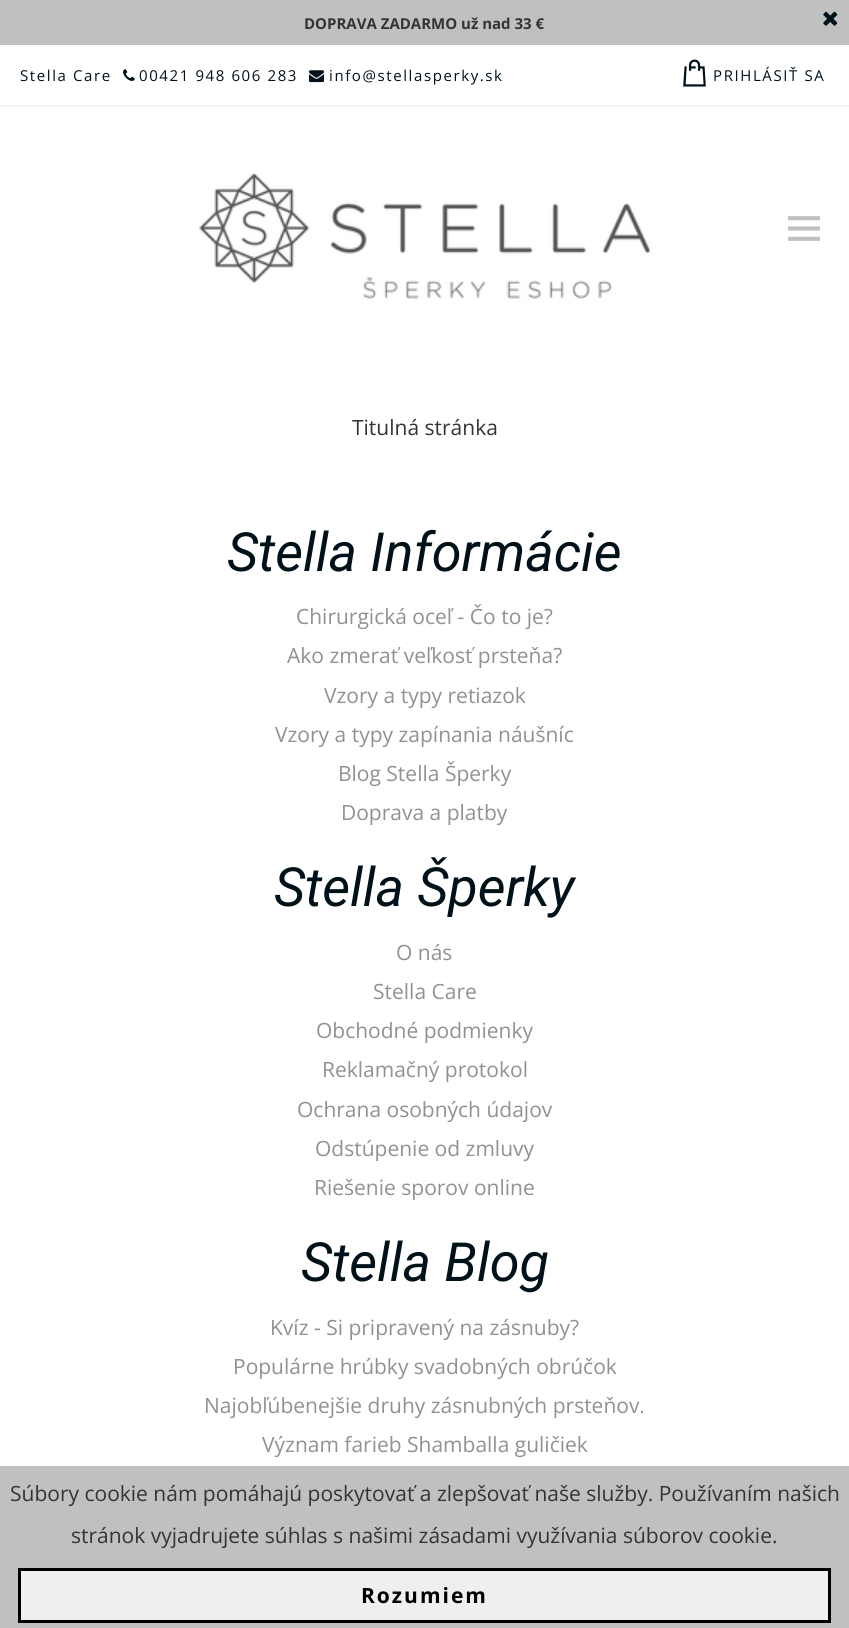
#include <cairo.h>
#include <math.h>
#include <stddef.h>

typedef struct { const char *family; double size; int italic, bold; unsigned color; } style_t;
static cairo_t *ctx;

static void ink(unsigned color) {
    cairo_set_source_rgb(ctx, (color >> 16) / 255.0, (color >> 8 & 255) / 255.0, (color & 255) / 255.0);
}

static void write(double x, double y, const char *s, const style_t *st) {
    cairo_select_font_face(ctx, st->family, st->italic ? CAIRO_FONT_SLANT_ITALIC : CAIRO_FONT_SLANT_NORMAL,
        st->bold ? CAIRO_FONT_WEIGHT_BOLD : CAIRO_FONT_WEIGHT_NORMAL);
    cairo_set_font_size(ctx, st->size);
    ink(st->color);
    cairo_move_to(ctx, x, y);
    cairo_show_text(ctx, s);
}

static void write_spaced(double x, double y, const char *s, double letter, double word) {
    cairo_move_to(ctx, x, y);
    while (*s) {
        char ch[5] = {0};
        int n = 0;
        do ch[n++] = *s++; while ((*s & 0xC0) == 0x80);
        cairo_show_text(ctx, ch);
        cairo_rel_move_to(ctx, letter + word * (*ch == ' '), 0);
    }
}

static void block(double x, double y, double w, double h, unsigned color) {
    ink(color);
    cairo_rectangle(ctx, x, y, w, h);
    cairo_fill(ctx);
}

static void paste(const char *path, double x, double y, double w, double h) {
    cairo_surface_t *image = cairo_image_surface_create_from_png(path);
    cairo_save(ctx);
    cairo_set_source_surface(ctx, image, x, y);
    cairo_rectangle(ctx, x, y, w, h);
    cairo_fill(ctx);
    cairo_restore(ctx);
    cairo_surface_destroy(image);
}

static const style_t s1 = {"Open Sans", 15, 0, 1, 0x343434};
static const style_t s2 = {"Open Sans", 21, 0, 0, 0x343434};
static const style_t s3 = {"Roboto", 54, 1, 0, 0x00111a};
static const style_t s4 = {"Open Sans", 21, 0, 0, 0x919191};

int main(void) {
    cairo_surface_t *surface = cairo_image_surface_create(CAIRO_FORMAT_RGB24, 849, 1628);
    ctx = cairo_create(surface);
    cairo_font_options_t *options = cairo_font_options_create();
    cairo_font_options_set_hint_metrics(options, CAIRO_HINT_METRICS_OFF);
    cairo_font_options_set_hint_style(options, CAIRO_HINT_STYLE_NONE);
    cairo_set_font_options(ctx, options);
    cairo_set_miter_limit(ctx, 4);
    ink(0xffffff);
    cairo_paint(ctx);
    block(0, 0, 849, 45, 0xc0c0c0);
    write(304, 29, "DOPRAVA ZADARMO už nad 33 €", &s1);
    paste("pic1.png", 823, 11, 15, 15);
    block(0, 105, 849, 2, 0xf1f2f4);
    cairo_select_font_face(ctx, "Open Sans", CAIRO_FONT_SLANT_NORMAL, CAIRO_FONT_WEIGHT_NORMAL);
    ink(0x00111a);
    write_spaced(20, 81, "Stella Care", 1.6, 0);
    paste("pic2.png", 123, 69, 12, 12);
    write_spaced(139, 81, "00421 948 606 283", 1.6, 0);
    paste("pic3.png", 309, 70, 15, 13);
    write_spaced(329, 81, "info@stellasperky.sk", 1.6, 0);
    paste("pic4.png", 683, 59, 23, 28);
    write_spaced(713, 81, "PRIHLÁSIŤ SA", 1.6, 0);
    paste("pic5.png", 199, 173, 451, 126);
    paste("pic6.png", 788, 216, 32, 25);
    write(352, 435, "Titulná stránka", &s2);
    write(227, 571, "Stella Informácie", &s3);
    write(296, 624, "Chirurgická oceľ - Čo to je?", &s4);
    write(287, 663, "Ako zmerať veľkosť prsteňa?", &s4);
    write(324, 703, "Vzory a typy retiazok", &s4);
    write(275, 742, "Vzory a typy zapínania náušníc", &s4);
    write(338, 781, "Blog Stella Šperky", &s4);
    write(341, 820, "Doprava a platby", &s4);
    write(274, 906, "Stella Šperky", &s3);
    write(396, 960, "O nás", &s4);
    write(373, 999, "Stella Care", &s4);
    write(316, 1038, "Obchodné podmienky", &s4);
    write(322, 1077, "Reklamačný protokol", &s4);
    write(297, 1117, "Ochrana osobných údajov", &s4);
    write(315, 1156, "Odstúpenie od zmluvy", &s4);
    write(314, 1195, "Riešenie sporov online", &s4);
    write(301, 1281, "Stella Blog", &s3);
    write(270, 1335, "Kvíz - Si pripravený na zásnuby?", &s4);
    write(233, 1374, "Populárne hrúbky svadobných obrúčok", &s4);
    write(204, 1413, "Najobľúbenejšie druhy zásnubných prsteňov.", &s4);
    write(262, 1452, "Význam farieb Shamballa guličiek", &s4);
    block(0, 1466, 849, 162, 0xc0c0c0);
    write(10, 1501, "Súbory cookie nám pomáhajú poskytovať a zlepšovať naše služby. Používaním našich", &s2);
    write(71, 1543, "stránok vyjadrujete súhlas s našimi zásadami využívania súborov cookie.", &s2);
    ink(0xefefef);
    cairo_rectangle(ctx, 19.5, 1569.5, 810, 52);
    cairo_fill_preserve(ctx);
    ink(0x000000);
    cairo_set_line_width(ctx, 3);
    cairo_stroke(ctx);
    cairo_select_font_face(ctx, "Open Sans", CAIRO_FONT_SLANT_NORMAL, CAIRO_FONT_WEIGHT_BOLD);
    write_spaced(361, 1603, "Rozumiem", 2, 0);
    cairo_surface_write_to_png(surface, "screenshot.png");
    cairo_font_options_destroy(options);
    cairo_destroy(ctx);
    cairo_surface_destroy(surface);
    return 0;
}
